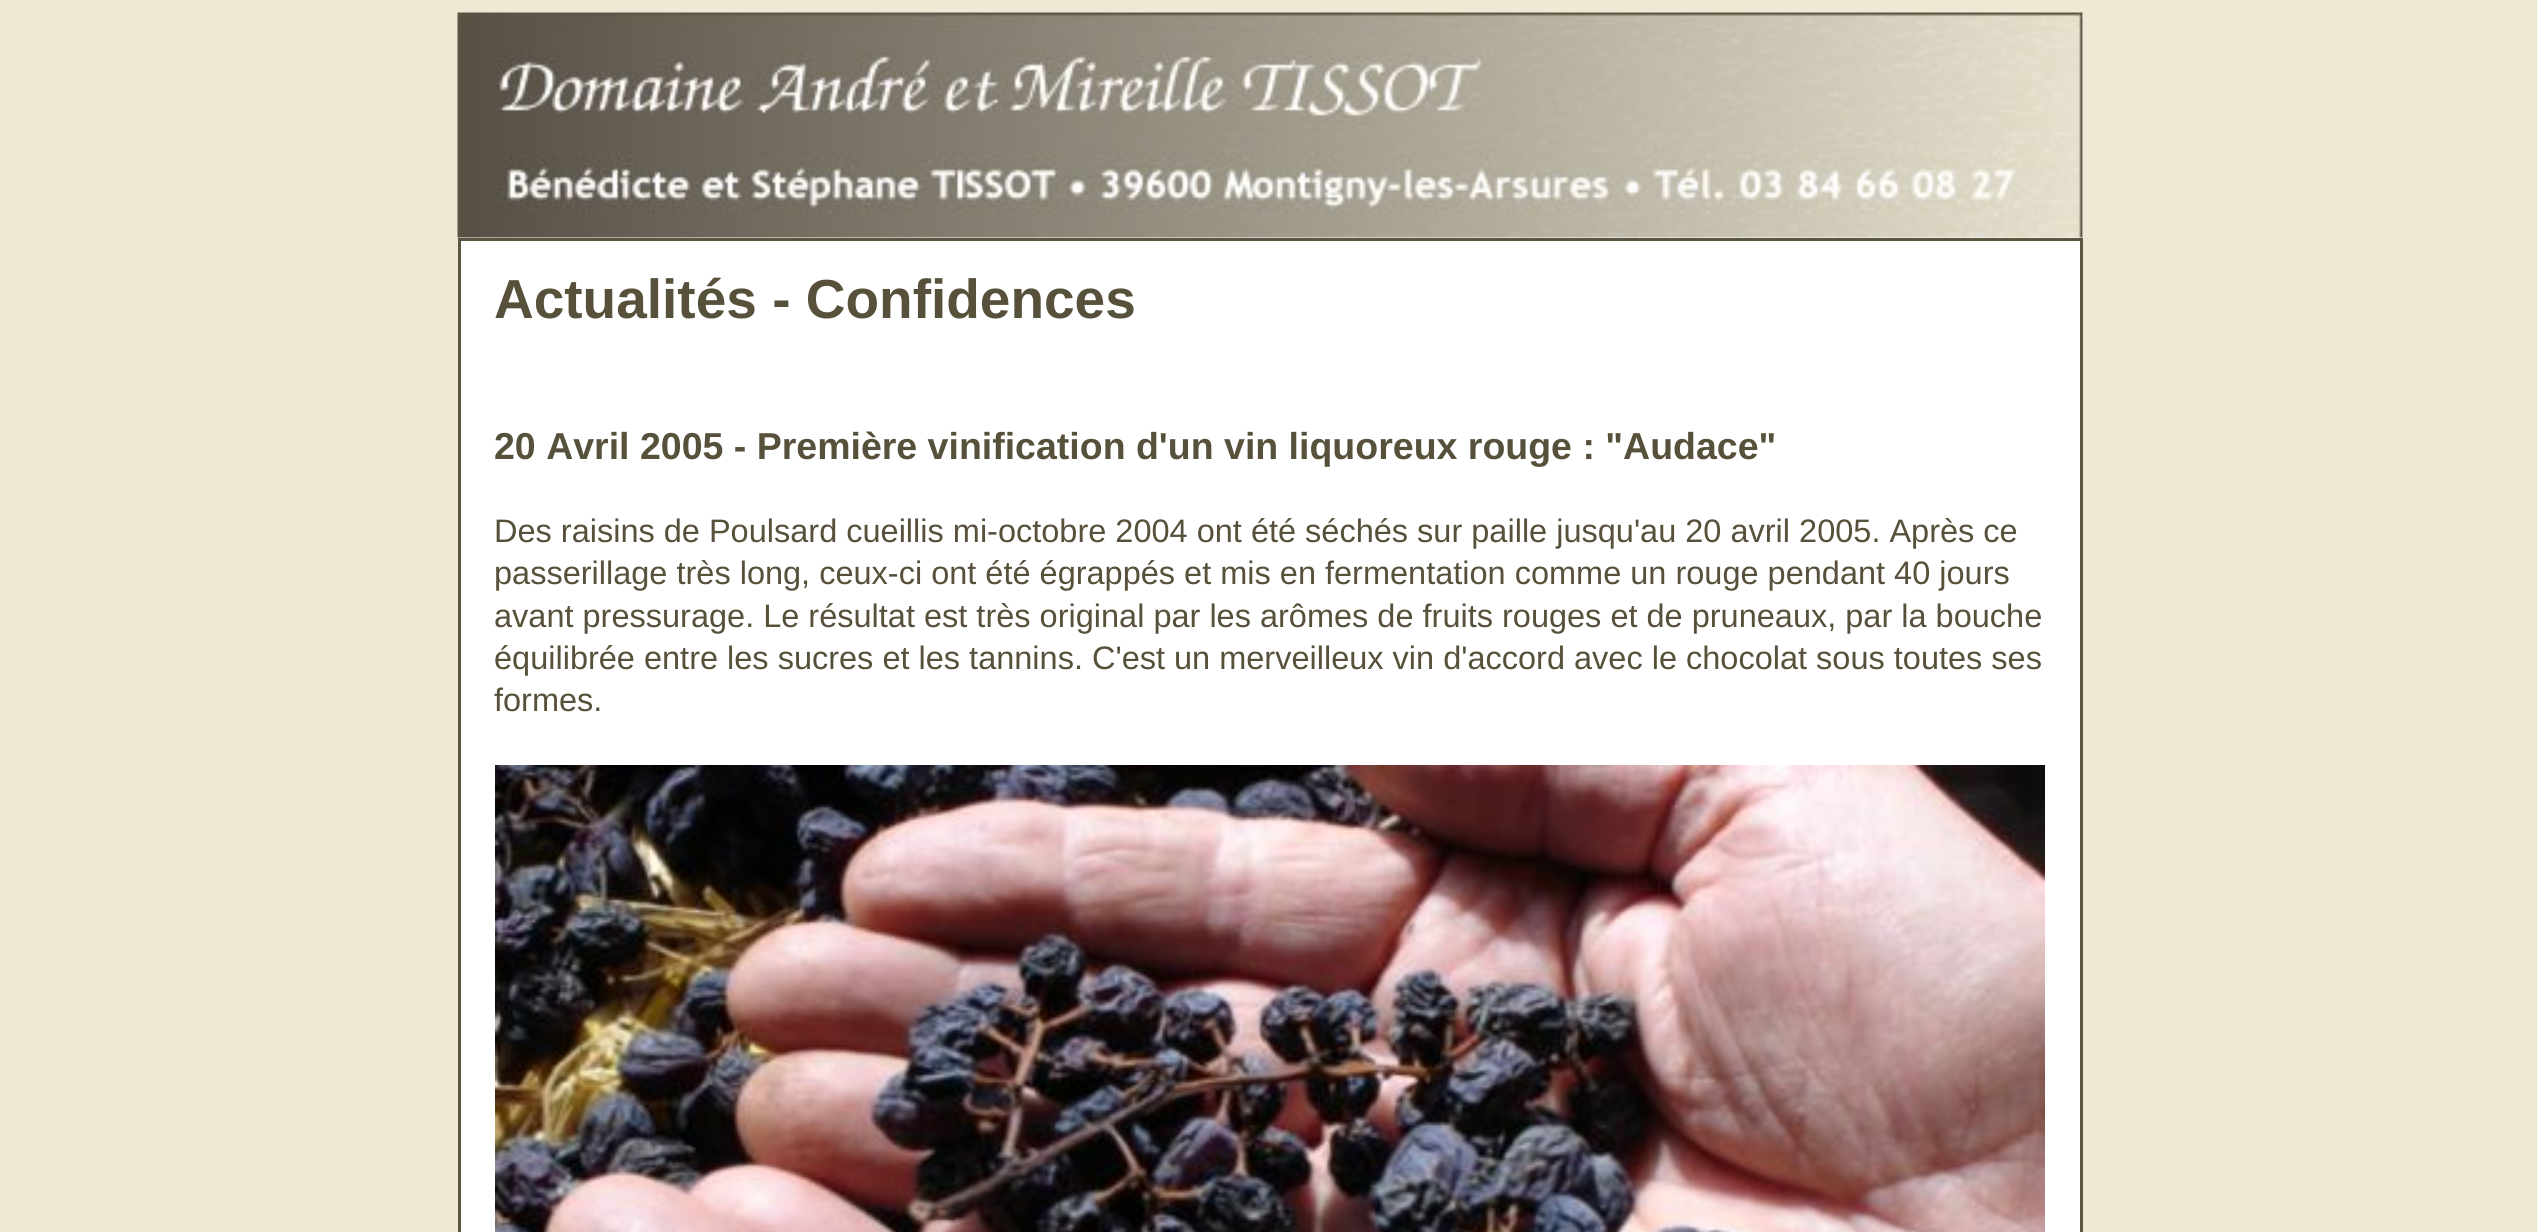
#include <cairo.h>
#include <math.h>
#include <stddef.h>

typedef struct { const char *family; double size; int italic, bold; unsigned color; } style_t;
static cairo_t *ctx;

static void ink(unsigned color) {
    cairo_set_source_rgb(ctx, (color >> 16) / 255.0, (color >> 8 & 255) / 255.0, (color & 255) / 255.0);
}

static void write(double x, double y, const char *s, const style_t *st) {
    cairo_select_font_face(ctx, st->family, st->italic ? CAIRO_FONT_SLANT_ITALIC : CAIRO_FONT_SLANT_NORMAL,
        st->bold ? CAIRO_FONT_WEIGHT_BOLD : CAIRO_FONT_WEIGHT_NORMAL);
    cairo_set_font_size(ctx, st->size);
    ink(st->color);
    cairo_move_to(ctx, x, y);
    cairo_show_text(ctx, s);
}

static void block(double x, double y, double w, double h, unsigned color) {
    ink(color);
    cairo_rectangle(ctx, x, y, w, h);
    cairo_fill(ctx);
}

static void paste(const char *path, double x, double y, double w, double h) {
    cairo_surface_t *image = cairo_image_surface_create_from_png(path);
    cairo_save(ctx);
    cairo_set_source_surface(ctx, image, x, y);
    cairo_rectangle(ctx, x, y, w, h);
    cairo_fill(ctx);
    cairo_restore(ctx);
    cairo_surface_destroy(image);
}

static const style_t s1 = {"Liberation Sans", 55, 0, 1, 0x57513b};
static const style_t s2 = {"Liberation Sans", 37.5, 0, 1, 0x57513b};
static const style_t s3 = {"Liberation Sans", 32.5, 0, 0, 0x57513b};

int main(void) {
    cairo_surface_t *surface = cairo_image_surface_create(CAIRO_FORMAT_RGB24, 2537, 1232);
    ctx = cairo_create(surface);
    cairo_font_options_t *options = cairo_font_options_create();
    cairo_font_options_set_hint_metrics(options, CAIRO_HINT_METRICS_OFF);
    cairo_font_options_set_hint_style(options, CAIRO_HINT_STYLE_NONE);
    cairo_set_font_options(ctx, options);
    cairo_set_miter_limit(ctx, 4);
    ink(0xeee9d5);
    cairo_paint(ctx);
    block(458, 13, 1625, 225, 0xffffff);
    paste("pic1.png", 457, 12, 1626, 226);
    block(461, 241, 1619, 991, 0xffffff);
    block(458, 238, 1625, 3, 0x5c5640);
    block(2080, 238, 3, 994, 0x5c5640);
    block(458, 238, 3, 994, 0x5c5640);
    write(494, 318, "Actualités - Confidences", &s1);
    write(494, 459, "20 Avril 2005 - Première vinification d'un vin liquoreux rouge : \"Audace\"", &s2);
    write(494, 542, "Des raisins de Poulsard cueillis mi-octobre 2004 ont été séchés sur paille jusqu'au 20 avril 2005. Après ce", &s3);
    write(494, 584, "passerillage très long, ceux-ci ont été égrappés et mis en fermentation comme un rouge pendant 40 jours", &s3);
    write(494, 627, "avant pressurage. Le résultat est très original par les arômes de fruits rouges et de pruneaux, par la bouche", &s3);
    write(494, 669, "équilibrée entre les sucres et les tannins. C'est un merveilleux vin d'accord avec le chocolat sous toutes ses", &s3);
    write(494, 711, "formes.", &s3);
    paste("pic2.png", 495, 765, 1550, 467);
    cairo_surface_write_to_png(surface, "screenshot.png");
    cairo_font_options_destroy(options);
    cairo_destroy(ctx);
    cairo_surface_destroy(surface);
    return 0;
}
